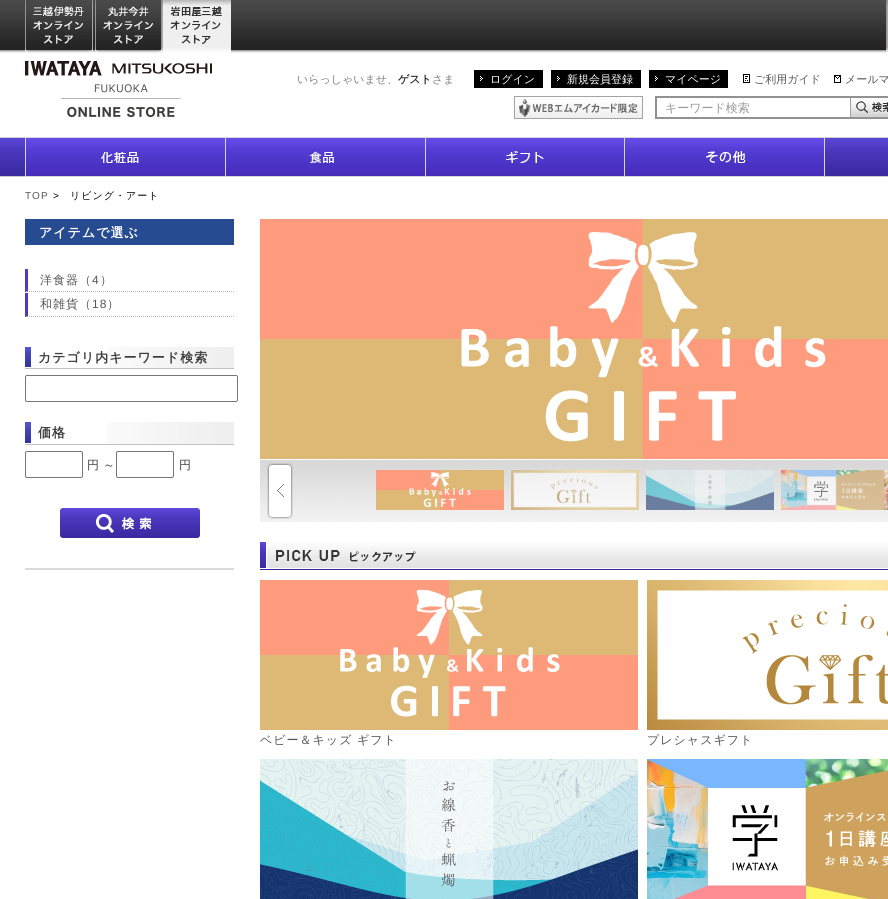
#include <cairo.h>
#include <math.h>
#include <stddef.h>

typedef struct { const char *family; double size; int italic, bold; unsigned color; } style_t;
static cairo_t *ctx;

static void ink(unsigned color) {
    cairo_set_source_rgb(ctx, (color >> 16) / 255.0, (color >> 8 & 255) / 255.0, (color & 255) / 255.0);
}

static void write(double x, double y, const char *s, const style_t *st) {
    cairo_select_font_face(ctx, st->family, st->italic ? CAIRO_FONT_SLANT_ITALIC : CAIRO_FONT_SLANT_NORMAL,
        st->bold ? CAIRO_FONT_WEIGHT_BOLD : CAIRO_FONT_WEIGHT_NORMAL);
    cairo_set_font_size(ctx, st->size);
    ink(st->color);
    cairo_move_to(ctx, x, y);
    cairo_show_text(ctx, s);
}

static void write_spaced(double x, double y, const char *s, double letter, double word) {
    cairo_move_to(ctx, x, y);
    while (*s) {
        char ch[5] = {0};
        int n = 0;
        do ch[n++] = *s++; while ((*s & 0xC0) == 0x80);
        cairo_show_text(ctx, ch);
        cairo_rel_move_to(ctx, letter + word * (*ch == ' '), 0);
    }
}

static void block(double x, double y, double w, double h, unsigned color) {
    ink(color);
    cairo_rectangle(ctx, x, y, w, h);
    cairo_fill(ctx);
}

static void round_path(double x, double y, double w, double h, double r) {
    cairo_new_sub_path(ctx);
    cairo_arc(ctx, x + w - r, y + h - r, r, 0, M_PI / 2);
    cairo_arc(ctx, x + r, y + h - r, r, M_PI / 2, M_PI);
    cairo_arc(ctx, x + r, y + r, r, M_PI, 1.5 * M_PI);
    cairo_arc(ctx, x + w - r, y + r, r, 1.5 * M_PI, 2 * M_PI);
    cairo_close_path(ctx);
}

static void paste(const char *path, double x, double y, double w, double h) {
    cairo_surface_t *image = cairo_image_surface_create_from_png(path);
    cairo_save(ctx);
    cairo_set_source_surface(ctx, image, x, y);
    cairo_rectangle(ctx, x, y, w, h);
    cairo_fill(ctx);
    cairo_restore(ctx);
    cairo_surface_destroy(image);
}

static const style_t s1 = {"WenQuanYi Zen Hei Medium", 11, 0, 0, 0x7f7f7f};
static const style_t s2 = {"WenQuanYi Zen Hei", 11, 0, 1, 0x333333};
static const style_t s3 = {"WenQuanYi Zen Hei Medium", 11, 0, 0, 0xffffff};
static const style_t s4 = {"WenQuanYi Zen Hei Medium", 11, 0, 0, 0x555555};
static const style_t s5 = {"WenQuanYi Zen Hei Medium", 12, 0, 0, 0x999999};

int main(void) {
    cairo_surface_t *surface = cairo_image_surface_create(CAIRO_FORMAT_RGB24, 888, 899);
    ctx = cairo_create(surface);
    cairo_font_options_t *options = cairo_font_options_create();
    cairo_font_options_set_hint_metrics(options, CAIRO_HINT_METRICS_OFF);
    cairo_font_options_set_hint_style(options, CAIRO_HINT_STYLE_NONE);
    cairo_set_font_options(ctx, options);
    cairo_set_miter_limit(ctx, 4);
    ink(0xffffff);
    cairo_paint(ctx);
    paste("pic1.png", 0, 0, 886, 53);
    paste("pic2.png", 25, 0, 68, 53);
    paste("pic3.png", 95, 0, 68, 53);
    paste("pic4.png", 163, 0, 68, 53);
    paste("pic5.png", 886, 0, 2, 53);
    paste("pic6.png", 25, 61, 187, 56);
    write(297, 83, "いらっしゃいませ、", &s1);
    write(398, 83, "ゲスト", &s2);
    write(432, 83, "さま", &s1);
    block(474, 70, 69, 18, 0x000000);
    paste("pic7.png", 480, 76, 3, 5);
    write(490, 83, "ログイン", &s3);
    block(551, 70, 90, 18, 0x000000);
    paste("pic7.png", 557, 76, 3, 5);
    write(567, 83, "新規会員登録", &s3);
    block(649, 70, 79, 18, 0x000000);
    paste("pic7.png", 655, 76, 3, 5);
    write(665, 83, "マイページ", &s3);
    paste("pic8.png", 743, 74, 7, 9);
    write(754, 83, "ご利用ガイド", &s4);
    paste("pic9.png", 834, 75, 7, 8);
    write(845, 83, "メールマ", &s4);
    paste("pic10.png", 514, 96, 129, 23);
    cairo_rectangle(ctx, 656, 97, 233, 21);
    ink(0x929292);
    cairo_stroke(ctx);
    write(665, 112, "キーワード検索", &s5);
    paste("pic11.png", 850, 98, 38, 19);
    paste("pic12.png", 0, 137, 888, 40);
    paste("pic13.png", 25, 137, 200, 40);
    paste("pic14.png", 225, 137, 200, 40);
    paste("pic15.png", 425, 137, 200, 40);
    paste("pic16.png", 625, 137, 200, 40);
    cairo_select_font_face(ctx, "Liberation Sans", CAIRO_FONT_SLANT_NORMAL, CAIRO_FONT_WEIGHT_NORMAL);
    cairo_set_font_size(ctx, 10);
    ink(0x555555);
    write_spaced(25, 199, "TOP", 1, 0);
    ink(0x000000);
    write_spaced(53, 199, ">", 1, 0);
    cairo_select_font_face(ctx, "WenQuanYi Zen Hei Medium", CAIRO_FONT_SLANT_NORMAL, CAIRO_FONT_WEIGHT_NORMAL);
    write_spaced(70, 199, "リビング・アート", 1, 0);
    block(25, 219, 209, 26, 0x264b91);
    cairo_select_font_face(ctx, "WenQuanYi Zen Hei", CAIRO_FONT_SLANT_NORMAL, CAIRO_FONT_WEIGHT_BOLD);
    cairo_set_font_size(ctx, 13);
    ink(0xffffff);
    write_spaced(39, 237, "アイテムで選ぶ", 1, 0);
    block(25, 568, 209, 2, 0xdbdbdb);
    cairo_new_path(ctx);
    cairo_move_to(ctx, 25, 291.5);
    cairo_line_to(ctx, 234, 291.5);
    ink(0xb3b3b3);
    cairo_set_line_width(ctx, 1);
    cairo_set_dash(ctx, (double[]){1, 1}, 2, 0);
    cairo_stroke(ctx);
    ink(0x4d3ac1);
    cairo_new_path(ctx);
    cairo_move_to(ctx, 25, 292);
    cairo_line_to(ctx, 25, 269);
    cairo_line_to(ctx, 28, 269);
    cairo_line_to(ctx, 28, 291);
    cairo_close_path(ctx);
    cairo_fill(ctx);
    cairo_select_font_face(ctx, "WenQuanYi Zen Hei Medium", CAIRO_FONT_SLANT_NORMAL, CAIRO_FONT_WEIGHT_NORMAL);
    cairo_set_font_size(ctx, 12);
    ink(0x555555);
    write_spaced(40, 284, "洋食器（", 1, 0);
    cairo_select_font_face(ctx, "Liberation Sans", CAIRO_FONT_SLANT_NORMAL, CAIRO_FONT_WEIGHT_NORMAL);
    write_spaced(92, 284, "4", 1, 0);
    cairo_select_font_face(ctx, "WenQuanYi Zen Hei Medium", CAIRO_FONT_SLANT_NORMAL, CAIRO_FONT_WEIGHT_NORMAL);
    write_spaced(100, 284, "）", 1, 0);
    cairo_new_path(ctx);
    cairo_move_to(ctx, 25, 316.5);
    cairo_line_to(ctx, 234, 316.5);
    ink(0xb3b3b3);
    cairo_stroke(ctx);
    ink(0x4d3ac1);
    cairo_new_path(ctx);
    cairo_move_to(ctx, 25, 317);
    cairo_line_to(ctx, 25, 293);
    cairo_line_to(ctx, 28, 293);
    cairo_line_to(ctx, 28, 316);
    cairo_close_path(ctx);
    cairo_fill(ctx);
    ink(0x555555);
    write_spaced(40, 308, "和雑貨（", 1, 0);
    cairo_select_font_face(ctx, "Liberation Sans", CAIRO_FONT_SLANT_NORMAL, CAIRO_FONT_WEIGHT_NORMAL);
    write_spaced(92, 308, "18", 1, 0);
    cairo_select_font_face(ctx, "WenQuanYi Zen Hei Medium", CAIRO_FONT_SLANT_NORMAL, CAIRO_FONT_WEIGHT_NORMAL);
    write_spaced(107, 308, "）", 1, 0);
    paste("pic17.png", 107, 347, 127, 21);
    block(25, 368, 209, 1, 0xc2c2c2);
    paste("pic18.png", 25, 347, 6, 20);
    cairo_select_font_face(ctx, "WenQuanYi Zen Hei", CAIRO_FONT_SLANT_NORMAL, CAIRO_FONT_WEIGHT_BOLD);
    cairo_set_font_size(ctx, 13);
    ink(0x3e3e3e);
    write_spaced(38, 362, "カテゴリ内キーワード検索", 1, 0);
    round_path(25.5, 375.5, 212, 26, 1.5);
    ink(0x767676);
    cairo_set_dash(ctx, NULL, 0, 0);
    cairo_stroke(ctx);
    paste("pic19.png", 107, 422, 127, 22);
    block(25, 444, 209, 1, 0xc2c2c2);
    paste("pic20.png", 25, 422, 6, 21);
    ink(0x3e3e3e);
    write_spaced(38, 437, "価格", 1, 0);
    round_path(25.5, 451.5, 57, 26, 1.5);
    ink(0x767676);
    cairo_stroke(ctx);
    cairo_select_font_face(ctx, "WenQuanYi Zen Hei Medium", CAIRO_FONT_SLANT_NORMAL, CAIRO_FONT_WEIGHT_NORMAL);
    cairo_set_font_size(ctx, 12);
    ink(0x3e3e3e);
    write_spaced(87, 469, "円", 1, 0);
    write_spaced(103, 469, "～", 1, 0);
    round_path(116.5, 451.5, 57, 26, 1.5);
    ink(0x767676);
    cairo_stroke(ctx);
    ink(0x3e3e3e);
    write_spaced(179, 469, "円", 1, 0);
    paste("pic21.png", 60, 508, 140, 30);
    paste("pic22.png", 260, 219, 628, 240);
    paste("pic23.png", 260, 460, 628, 62);
    paste("pic24.png", 267, 463, 26, 56);
    paste("pic25.png", 376, 470, 128, 40);
    paste("pic26.png", 511, 470, 128, 40);
    paste("pic27.png", 646, 470, 128, 40);
    paste("pic28.png", 781, 470, 107, 40);
    paste("pic29.png", 260, 542, 628, 28);
    paste("pic30.png", 260, 580, 378, 150);
    ink(0x555555);
    write_spaced(260, 744, "ベビー＆キッズ ギフト", 1, 0);
    paste("pic31.png", 647, 580, 241, 150);
    write_spaced(647, 744, "プレシャスギフト", 1, 0);
    paste("pic32.png", 260, 759, 378, 140);
    paste("pic33.png", 647, 759, 241, 140);
    cairo_surface_write_to_png(surface, "screenshot.png");
    cairo_font_options_destroy(options);
    cairo_destroy(ctx);
    cairo_surface_destroy(surface);
    return 0;
}
